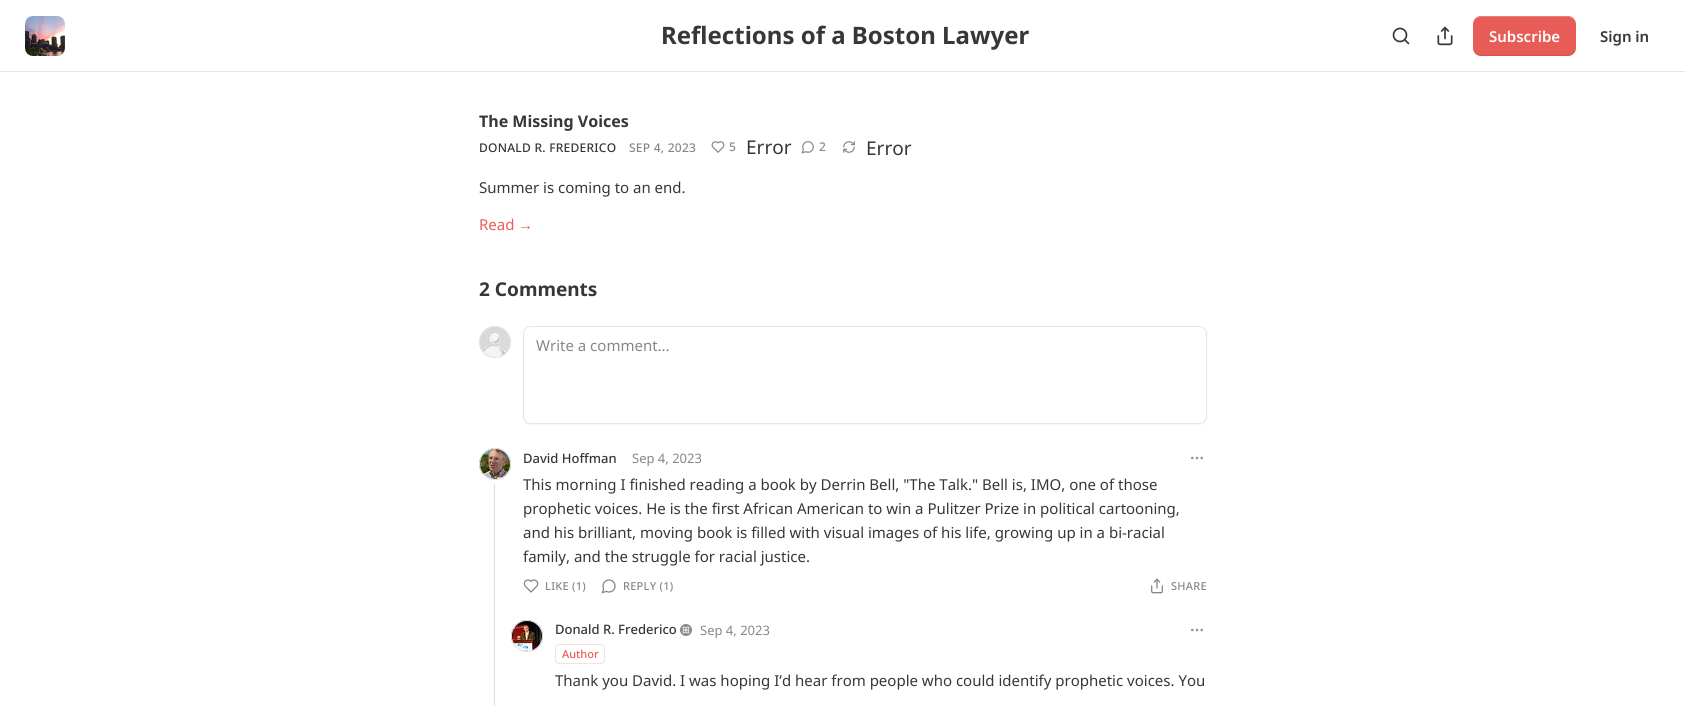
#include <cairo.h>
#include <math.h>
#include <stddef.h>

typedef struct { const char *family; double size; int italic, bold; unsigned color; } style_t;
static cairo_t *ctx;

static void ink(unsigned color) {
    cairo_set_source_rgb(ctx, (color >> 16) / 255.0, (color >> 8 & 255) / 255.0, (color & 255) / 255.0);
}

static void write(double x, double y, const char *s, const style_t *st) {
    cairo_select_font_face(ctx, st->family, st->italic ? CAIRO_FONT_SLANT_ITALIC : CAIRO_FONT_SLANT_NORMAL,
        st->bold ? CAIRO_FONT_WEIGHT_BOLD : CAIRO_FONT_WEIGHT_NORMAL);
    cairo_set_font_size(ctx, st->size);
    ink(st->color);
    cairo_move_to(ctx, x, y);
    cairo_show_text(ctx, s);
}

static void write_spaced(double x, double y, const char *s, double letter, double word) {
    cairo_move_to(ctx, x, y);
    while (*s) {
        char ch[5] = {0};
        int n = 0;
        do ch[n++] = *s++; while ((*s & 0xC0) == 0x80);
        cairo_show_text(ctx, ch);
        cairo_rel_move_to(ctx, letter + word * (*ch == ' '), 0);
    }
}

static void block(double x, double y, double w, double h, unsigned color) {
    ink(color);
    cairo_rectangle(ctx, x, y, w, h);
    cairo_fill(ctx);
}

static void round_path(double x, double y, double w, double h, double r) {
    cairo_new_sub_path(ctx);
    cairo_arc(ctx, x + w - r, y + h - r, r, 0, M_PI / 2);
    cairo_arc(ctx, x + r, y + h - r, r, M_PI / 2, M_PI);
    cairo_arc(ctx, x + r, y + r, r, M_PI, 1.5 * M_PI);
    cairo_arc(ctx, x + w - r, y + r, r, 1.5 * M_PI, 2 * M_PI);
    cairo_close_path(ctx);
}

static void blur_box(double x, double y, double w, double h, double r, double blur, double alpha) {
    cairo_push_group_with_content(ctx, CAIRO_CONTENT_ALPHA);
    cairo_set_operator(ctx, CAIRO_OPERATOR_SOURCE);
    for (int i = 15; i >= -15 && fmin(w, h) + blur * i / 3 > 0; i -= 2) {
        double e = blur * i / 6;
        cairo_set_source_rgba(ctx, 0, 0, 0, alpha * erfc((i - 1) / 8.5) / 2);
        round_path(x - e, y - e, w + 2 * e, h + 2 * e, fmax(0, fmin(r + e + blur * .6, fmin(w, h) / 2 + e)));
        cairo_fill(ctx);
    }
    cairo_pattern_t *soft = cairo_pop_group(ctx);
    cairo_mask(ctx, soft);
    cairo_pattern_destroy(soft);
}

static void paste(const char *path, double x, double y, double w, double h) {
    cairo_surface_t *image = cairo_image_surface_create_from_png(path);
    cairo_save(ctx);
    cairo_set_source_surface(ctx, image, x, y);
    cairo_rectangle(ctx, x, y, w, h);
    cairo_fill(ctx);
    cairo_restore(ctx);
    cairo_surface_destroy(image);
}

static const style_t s1 = {"Noto Sans", 24, 0, 1, 0x363737};
static const style_t s2 = {"Noto Sans SemiBold", 15, 0, 0, 0xffffff};
static const style_t s3 = {"Noto Sans SemiBold", 15, 0, 0, 0x363737};
static const style_t s4 = {"Noto Sans", 16, 0, 1, 0x363737};
static const style_t s5 = {"Noto Sans", 19, 0, 0, 0x363737};
static const style_t s6 = {"Noto Sans", 15, 0, 0, 0x363737};
static const style_t s7 = {"Noto Sans", 15, 0, 0, 0xe85c57};
static const style_t s8 = {"Liberation Sans", 15, 0, 0, 0xe85c57};
static const style_t s9 = {"Noto Sans", 19, 0, 1, 0x363737};
static const style_t s10 = {"Noto Sans", 15, 0, 0, 0x868787};
static const style_t s11 = {"Noto Sans Medium", 13, 0, 0, 0x363737};
static const style_t s12 = {"Noto Sans", 13, 0, 0, 0x868787};
static const style_t s13 = {"Noto Sans Medium", 11, 0, 0, 0xe85c57};

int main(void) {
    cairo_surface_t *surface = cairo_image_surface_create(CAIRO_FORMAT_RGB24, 1685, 706);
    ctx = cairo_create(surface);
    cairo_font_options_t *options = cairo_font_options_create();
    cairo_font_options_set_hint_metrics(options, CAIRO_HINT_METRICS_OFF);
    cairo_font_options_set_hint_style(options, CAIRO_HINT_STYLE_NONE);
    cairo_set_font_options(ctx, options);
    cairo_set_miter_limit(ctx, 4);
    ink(0xffffff);
    cairo_paint(ctx);
    block(0, 71, 1685, 1, 0xe6e6e6);
    paste("pic1.png", 25, 16, 40, 40);
    write(661, 44, "Reflections of a Boston Lawyer", &s1);
    cairo_new_path(ctx);
    cairo_arc(ctx, 1400, 35, 6.5, 0, 2 * M_PI);
    cairo_set_line_width(ctx, 1.7);
    cairo_stroke(ctx);
    cairo_new_path(ctx);
    cairo_move_to(ctx, 1408.5, 43.5);
    cairo_line_to(ctx, 1405, 40);
    cairo_set_line_cap(ctx, CAIRO_LINE_CAP_ROUND);
    cairo_set_line_join(ctx, CAIRO_LINE_JOIN_ROUND);
    cairo_stroke(ctx);
    paste("pic2.png", 1437, 26, 16, 20);
    ink(0xe85c57);
    round_path(1473, 16, 103, 40, 8);
    cairo_fill(ctx);
    cairo_set_source_rgba(ctx, 0, 0, 0, 0.1);
    cairo_new_path(ctx);
    cairo_move_to(ctx, 1473, 47);
    cairo_curve_to(ctx, 1473, 59, 1487, 56, 1496, 56);
    cairo_line_to(ctx, 1554, 56);
    cairo_curve_to(ctx, 1562, 56, 1576, 59, 1576, 47);
    cairo_curve_to(ctx, 1576, 51, 1572, 55, 1568, 55);
    cairo_line_to(ctx, 1481, 55);
    cairo_curve_to(ctx, 1477, 55, 1473, 51, 1473, 47);
    cairo_close_path(ctx);
    cairo_fill(ctx);
    cairo_set_source_rgba(ctx, 1, 1, 1, 0.2);
    cairo_new_path(ctx);
    cairo_move_to(ctx, 1481, 17);
    cairo_line_to(ctx, 1568, 17);
    cairo_curve_to(ctx, 1572, 17, 1576, 21, 1576, 25);
    cairo_curve_to(ctx, 1576, 13, 1562, 16, 1554, 16);
    cairo_line_to(ctx, 1496, 16);
    cairo_curve_to(ctx, 1487, 16, 1473, 13, 1473, 25);
    cairo_curve_to(ctx, 1473, 21, 1477, 17, 1481, 17);
    cairo_close_path(ctx);
    cairo_fill(ctx);
    write(1489, 42, "Subscribe", &s2);
    write(1600, 42, "Sign in", &s3);
    write(479, 127, "The Missing Voices", &s4);
    cairo_select_font_face(ctx, "Noto Sans Medium", CAIRO_FONT_SLANT_NORMAL, CAIRO_FONT_WEIGHT_NORMAL);
    cairo_set_font_size(ctx, 12);
    write_spaced(479, 152, "DONALD R. FREDERICO", 0.25, 0);
    ink(0x868787);
    write_spaced(629, 152, "SEP 4, 2023", 0.25, 0);
    paste("pic3.png", 711, 141, 14, 12);
    write_spaced(729, 151, "5", 0.25, 0);
    write(746, 154, "Error", &s5);
    paste("pic4.png", 801, 141, 13, 13);
    cairo_select_font_face(ctx, "Noto Sans Medium", CAIRO_FONT_SLANT_NORMAL, CAIRO_FONT_WEIGHT_NORMAL);
    cairo_set_font_size(ctx, 12);
    ink(0x868787);
    write_spaced(819, 151, "2", 0.25, 0);
    paste("pic5.png", 843, 141, 12, 12);
    write(866, 155, "Error", &s5);
    write(479, 193, "Summer is coming to an end.", &s6);
    write(479, 230, "Read", &s7);
    write(518, 230, "→", &s8);
    write(479, 296, "2 Comments", &s9);
    cairo_new_path(ctx);
    cairo_arc(ctx, 495, 342, 15.5, 0, 2 * M_PI);
    ink(0xe6e6e6);
    cairo_set_line_width(ctx, 1);
    cairo_set_line_cap(ctx, CAIRO_LINE_CAP_BUTT);
    cairo_set_line_join(ctx, CAIRO_LINE_JOIN_MITER);
    cairo_stroke(ctx);
    paste("pic6.png", 479, 326, 32, 32);
    cairo_arc(ctx, 495, 342, 15.5, 0, 2 * M_PI);
    cairo_stroke(ctx);
    ink(0x000000);
    blur_box(523, 327, 684, 98, 8, 1, 0.05);
    ink(0xffffff);
    round_path(523.5, 326.5, 683, 97, 7.5);
    cairo_fill_preserve(ctx);
    ink(0xe6e6e6);
    cairo_stroke(ctx);
    write(536, 351, "Write a comment...", &s10);
    block(494, 484, 1, 222, 0xdddddd);
    cairo_new_path(ctx);
    cairo_arc(ctx, 495, 464, 15.5, 0, 2 * M_PI);
    ink(0xe6e6e6);
    cairo_stroke(ctx);
    paste("pic7.png", 479, 448, 32, 32);
    cairo_arc(ctx, 495, 464, 15.5, 0, 2 * M_PI);
    cairo_stroke(ctx);
    write(523, 463, "David Hoffman", &s11);
    write(632, 463, "Sep 4, 2023", &s12);
    cairo_new_path(ctx);
    cairo_arc(ctx, 1197, 458, 0.7, 0, 2 * M_PI);
    ink(0x929292);
    cairo_set_line_width(ctx, 1.3);
    cairo_stroke(ctx);
    cairo_arc(ctx, 1201.7, 458, 0.7, 0, 2 * M_PI);
    cairo_stroke(ctx);
    cairo_arc(ctx, 1192.3, 458, 0.7, 0, 2 * M_PI);
    cairo_stroke(ctx);
    write(523, 490, "This morning I finished reading a book by Derrin Bell, \"The Talk.\" Bell is, IMO, one of those", &s6);
    write(523, 514, "prophetic voices. He is the first African American to win a Pulitzer Prize in political cartooning,", &s6);
    write(523, 538, "and his brilliant, moving book is filled with visual images of his life, growing up in a bi-racial", &s6);
    write(523, 562, "family, and the struggle for racial justice.", &s6);
    paste("pic8.png", 523, 579, 16, 14);
    cairo_select_font_face(ctx, "Noto Sans Medium", CAIRO_FONT_SLANT_NORMAL, CAIRO_FONT_WEIGHT_NORMAL);
    cairo_set_font_size(ctx, 11);
    ink(0x868787);
    write_spaced(545, 590, "LIKE (1)", 0.25, 0);
    paste("pic9.png", 601, 579, 15, 15);
    write_spaced(623, 590, "REPLY (1)", 0.25, 0);
    paste("pic10.png", 1151, 578, 12, 16);
    write_spaced(1171, 590, "SHARE", 0.25, 0);
    cairo_new_path(ctx);
    cairo_arc(ctx, 527, 636, 15.5, 0, 2 * M_PI);
    ink(0xe6e6e6);
    cairo_set_line_width(ctx, 1);
    cairo_stroke(ctx);
    paste("pic11.png", 511, 620, 32, 32);
    cairo_arc(ctx, 527, 636, 15.5, 0, 2 * M_PI);
    cairo_stroke(ctx);
    write(555, 634, "Donald R. Frederico", &s11);
    paste("pic12.png", 680, 624, 12, 12);
    write(700, 635, "Sep 4, 2023", &s12);
    round_path(555.5, 644.5, 49, 19, 3.5);
    ink(0xfadedd);
    cairo_stroke(ctx);
    write(562, 658, "Author", &s13);
    cairo_new_path(ctx);
    cairo_arc(ctx, 1197, 630, 0.7, 0, 2 * M_PI);
    ink(0x929292);
    cairo_set_line_width(ctx, 1.3);
    cairo_stroke(ctx);
    cairo_arc(ctx, 1201.7, 630, 0.7, 0, 2 * M_PI);
    cairo_stroke(ctx);
    cairo_arc(ctx, 1192.3, 630, 0.7, 0, 2 * M_PI);
    cairo_stroke(ctx);
    write(555, 686, "Thank you David. I was hoping I’d hear from people who could identify prophetic voices. You", &s6);
    cairo_surface_write_to_png(surface, "screenshot.png");
    cairo_font_options_destroy(options);
    cairo_destroy(ctx);
    cairo_surface_destroy(surface);
    return 0;
}
